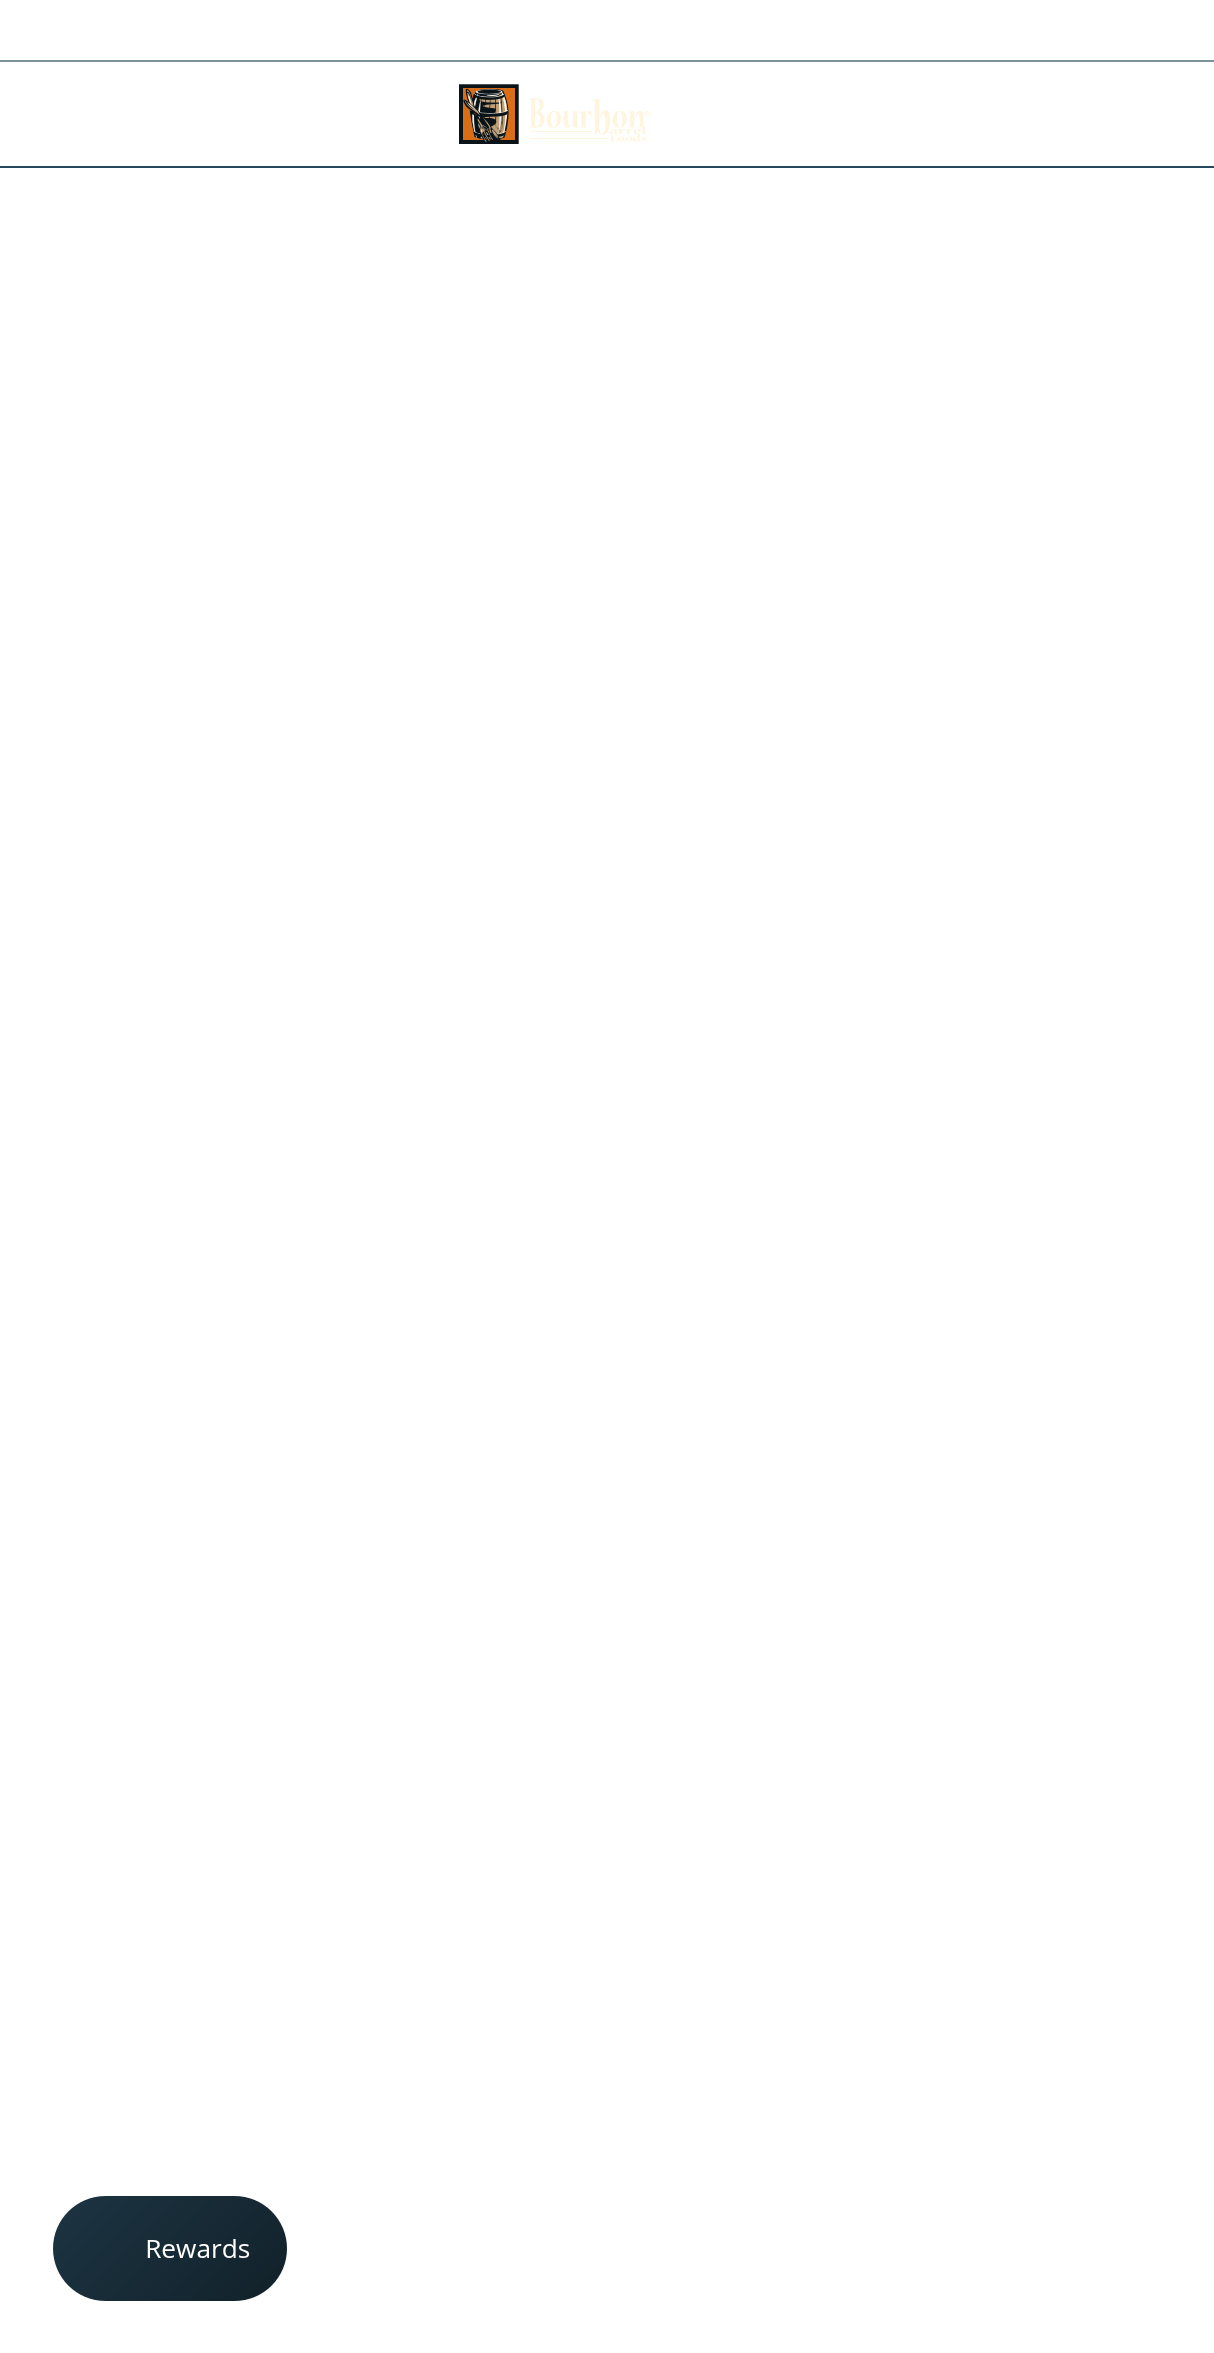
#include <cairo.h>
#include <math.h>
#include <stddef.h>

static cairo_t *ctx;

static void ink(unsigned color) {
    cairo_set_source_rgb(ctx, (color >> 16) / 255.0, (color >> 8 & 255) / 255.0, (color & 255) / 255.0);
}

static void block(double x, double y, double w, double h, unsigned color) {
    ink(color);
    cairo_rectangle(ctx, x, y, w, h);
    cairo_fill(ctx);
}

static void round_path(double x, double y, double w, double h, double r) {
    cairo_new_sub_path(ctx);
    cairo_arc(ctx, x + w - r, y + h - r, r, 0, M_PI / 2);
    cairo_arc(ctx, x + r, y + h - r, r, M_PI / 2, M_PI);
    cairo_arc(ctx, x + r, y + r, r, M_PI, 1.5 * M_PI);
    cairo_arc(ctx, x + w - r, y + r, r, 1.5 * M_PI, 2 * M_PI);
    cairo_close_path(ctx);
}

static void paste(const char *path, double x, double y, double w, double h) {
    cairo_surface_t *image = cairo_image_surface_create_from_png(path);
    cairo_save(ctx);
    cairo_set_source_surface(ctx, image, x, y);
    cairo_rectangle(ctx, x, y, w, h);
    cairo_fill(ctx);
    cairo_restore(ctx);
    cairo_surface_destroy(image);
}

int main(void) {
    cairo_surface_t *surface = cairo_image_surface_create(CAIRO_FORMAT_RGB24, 1214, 2353);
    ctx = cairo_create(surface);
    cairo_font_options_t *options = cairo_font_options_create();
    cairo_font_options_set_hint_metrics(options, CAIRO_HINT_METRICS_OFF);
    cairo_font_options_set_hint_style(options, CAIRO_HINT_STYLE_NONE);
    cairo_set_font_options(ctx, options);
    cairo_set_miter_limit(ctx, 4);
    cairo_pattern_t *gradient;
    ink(0xffffff);
    cairo_paint(ctx);
    block(0, 60, 1214, 2, 0x7e929e);
    block(0, 166, 1214, 2, 0x28495d);
    paste("pic1.png", 459, 84, 192, 60);
    gradient = cairo_pattern_create_linear(85, 2164, 255, 2334);
    cairo_pattern_add_color_stop_rgba(gradient, 0, 0.114, 0.204, 0.263, 1);
    cairo_pattern_add_color_stop_rgba(gradient, 1, 0.067, 0.129, 0.161, 1);
    cairo_set_source(ctx, gradient);
    cairo_pattern_destroy(gradient);
    round_path(53, 2196, 234, 105, 52.5);
    cairo_fill(ctx);
    paste("pic2.png", 147, 2239, 103, 19);
    cairo_surface_write_to_png(surface, "screenshot.png");
    cairo_font_options_destroy(options);
    cairo_destroy(ctx);
    cairo_surface_destroy(surface);
    return 0;
}
